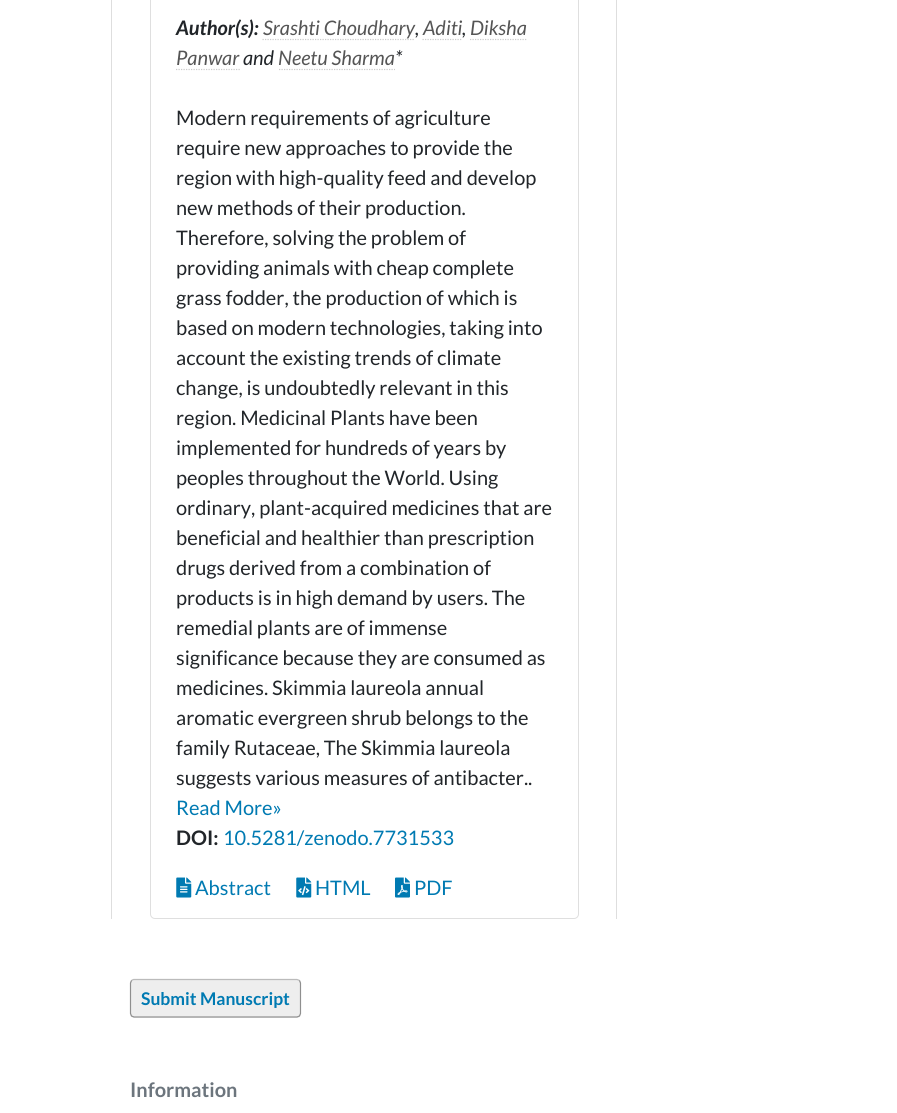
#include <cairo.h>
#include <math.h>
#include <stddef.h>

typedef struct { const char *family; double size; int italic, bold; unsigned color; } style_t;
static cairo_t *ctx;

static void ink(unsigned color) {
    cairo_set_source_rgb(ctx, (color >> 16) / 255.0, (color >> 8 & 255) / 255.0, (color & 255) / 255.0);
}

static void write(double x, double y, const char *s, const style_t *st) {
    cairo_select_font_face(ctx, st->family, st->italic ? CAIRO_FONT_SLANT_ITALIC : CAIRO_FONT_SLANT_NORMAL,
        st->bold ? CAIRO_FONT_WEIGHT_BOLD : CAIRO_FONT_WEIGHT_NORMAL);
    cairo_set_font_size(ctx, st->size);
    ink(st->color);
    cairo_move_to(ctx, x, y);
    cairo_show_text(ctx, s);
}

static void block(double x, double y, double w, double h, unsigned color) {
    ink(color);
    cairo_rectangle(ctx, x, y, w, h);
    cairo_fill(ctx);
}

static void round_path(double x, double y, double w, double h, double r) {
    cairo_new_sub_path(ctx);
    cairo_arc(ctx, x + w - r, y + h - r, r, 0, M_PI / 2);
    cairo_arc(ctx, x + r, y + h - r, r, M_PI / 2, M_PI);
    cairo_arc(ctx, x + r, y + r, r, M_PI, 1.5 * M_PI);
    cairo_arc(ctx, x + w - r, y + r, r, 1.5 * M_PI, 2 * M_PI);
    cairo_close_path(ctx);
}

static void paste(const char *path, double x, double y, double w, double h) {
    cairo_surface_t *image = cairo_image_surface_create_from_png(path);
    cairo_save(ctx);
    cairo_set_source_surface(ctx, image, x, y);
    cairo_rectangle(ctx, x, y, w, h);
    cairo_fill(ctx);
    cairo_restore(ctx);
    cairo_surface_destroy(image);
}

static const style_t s1 = {"Lato", 20, 1, 1, 0x212529};
static const style_t s2 = {"Lato", 20, 1, 0, 0x555555};
static const style_t s3 = {"Lato", 20, 1, 0, 0x212529};
static const style_t s4 = {"Lato", 20, 0, 0, 0x212529};
static const style_t s5 = {"Lato", 20, 0, 0, 0x007ab2};
static const style_t s6 = {"Lato", 20, 0, 1, 0x212529};
static const style_t s7 = {"Lato", 17.5, 0, 1, 0x007ab2};
static const style_t s8 = {"Lato", 20, 0, 1, 0x6c757d};

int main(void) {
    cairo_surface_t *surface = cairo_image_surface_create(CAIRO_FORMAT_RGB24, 897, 1113);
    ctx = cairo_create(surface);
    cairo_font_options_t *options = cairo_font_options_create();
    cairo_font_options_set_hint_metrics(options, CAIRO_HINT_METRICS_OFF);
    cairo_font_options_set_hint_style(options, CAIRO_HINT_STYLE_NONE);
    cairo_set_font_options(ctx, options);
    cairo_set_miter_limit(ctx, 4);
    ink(0xffffff);
    cairo_paint(ctx);
    block(616, 0, 1, 919, 0xdedede);
    block(111, 0, 1, 919, 0xdedede);
    round_path(150.5, -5.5, 428, 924, 4.5);
    ink(0xdfdfdf);
    cairo_set_line_width(ctx, 1);
    cairo_stroke(ctx);
    write(176, 35, "Author(s):", &s1);
    cairo_new_path(ctx);
    cairo_move_to(ctx, 262.5, 39.5);
    cairo_line_to(ctx, 415, 39.5);
    ink(0xcccccc);
    cairo_set_line_width(ctx, 1.2);
    cairo_set_dash(ctx, (double[]){1.25, 1.25}, 2, 0);
    cairo_stroke(ctx);
    write(263, 35, "Srashti Choudhary", &s2);
    write(415, 35, ",", &s3);
    write(423, 35, "Aditi", &s2);
    write(462, 35, ",", &s3);
    cairo_new_path(ctx);
    cairo_move_to(ctx, 422.5, 39.5);
    cairo_line_to(ctx, 462.5, 39.5);
    ink(0xcccccc);
    cairo_stroke(ctx);
    cairo_new_path(ctx);
    cairo_move_to(ctx, 470, 39.5);
    cairo_line_to(ctx, 527.5, 39.5);
    cairo_stroke(ctx);
    write(470, 35, "Diksha", &s2);
    write(176, 65, "Panwar", &s2);
    cairo_new_path(ctx);
    cairo_move_to(ctx, 176, 69.5);
    cairo_line_to(ctx, 240, 69.5);
    ink(0xcccccc);
    cairo_stroke(ctx);
    write(243, 65, "and", &s3);
    write(278, 65, "Neetu Sharma", &s2);
    cairo_new_path(ctx);
    cairo_move_to(ctx, 279, 69.5);
    cairo_line_to(ctx, 395, 69.5);
    ink(0xcccccc);
    cairo_stroke(ctx);
    write(395, 65, "*", &s3);
    write(176, 125, "Modern requirements of agriculture", &s4);
    write(176, 155, "require new approaches to provide the", &s4);
    write(176, 185, "region with high-quality feed and develop", &s4);
    write(176, 215, "new methods of their production.", &s4);
    write(176, 245, "Therefore, solving the problem of", &s4);
    write(176, 275, "providing animals with cheap complete", &s4);
    write(176, 305, "grass fodder, the production of which is", &s4);
    write(176, 335, "based on modern technologies, taking into", &s4);
    write(176, 365, "account the existing trends of climate", &s4);
    write(176, 395, "change, is undoubtedly relevant in this", &s4);
    write(176, 425, "region. Medicinal Plants have been", &s4);
    write(176, 455, "implemented for hundreds of years by", &s4);
    write(176, 485, "peoples throughout the World. Using", &s4);
    write(176, 515, "ordinary, plant-acquired medicines that are", &s4);
    write(176, 545, "beneficial and healthier than prescription", &s4);
    write(176, 575, "drugs derived from a combination of", &s4);
    write(176, 605, "products is in high demand by users. The", &s4);
    write(176, 635, "remedial plants are of immense", &s4);
    write(176, 665, "significance because they are consumed as", &s4);
    write(176, 695, "medicines. Skimmia laureola annual", &s4);
    write(176, 725, "aromatic evergreen shrub belongs to the", &s4);
    write(176, 755, "family Rutaceae, The Skimmia laureola", &s4);
    write(176, 785, "suggests various measures of antibacter..", &s4);
    write(176, 815, "Read More»", &s5);
    write(176, 845, "DOI:", &s6);
    write(223, 845, "10.5281/zenodo.7731533", &s5);
    paste("pic1.png", 176, 877, 16, 21);
    write(195, 895, "Abstract", &s5);
    paste("pic2.png", 296, 877, 16, 21);
    write(315, 895, "HTML", &s5);
    paste("pic3.png", 395, 877, 15, 21);
    write(414, 895, "PDF", &s5);
    ink(0xeeeeee);
    round_path(130, 979, 171, 39, 4);
    cairo_fill(ctx);
    cairo_new_path(ctx);
    cairo_move_to(ctx, 131.5, 980.5);
    cairo_line_to(ctx, 133.5, 979.5);
    cairo_line_to(ctx, 270, 979.5);
    cairo_line_to(ctx, 297, 979.5);
    cairo_line_to(ctx, 299.5, 980.5);
    ink(0xbbbbbb);
    cairo_set_dash(ctx, NULL, 0, 0);
    cairo_stroke(ctx);
    cairo_new_path(ctx);
    cairo_move_to(ctx, 299.5, 980.5);
    cairo_line_to(ctx, 300.5, 983);
    cairo_line_to(ctx, 300.5, 1013.5);
    cairo_line_to(ctx, 299.5, 1016);
    cairo_line_to(ctx, 297, 1017);
    cairo_line_to(ctx, 134, 1017);
    cairo_line_to(ctx, 131.5, 1016);
    cairo_line_to(ctx, 130.5, 1013.5);
    cairo_line_to(ctx, 130.5, 983);
    cairo_line_to(ctx, 131.5, 980.5);
    cairo_set_source_rgba(ctx, 0, 0, 0, 0.4);
    cairo_stroke(ctx);
    write(141, 1005, "Submit Manuscript", &s7);
    write(130, 1097, "Information", &s8);
    cairo_surface_write_to_png(surface, "screenshot.png");
    cairo_font_options_destroy(options);
    cairo_destroy(ctx);
    cairo_surface_destroy(surface);
    return 0;
}
